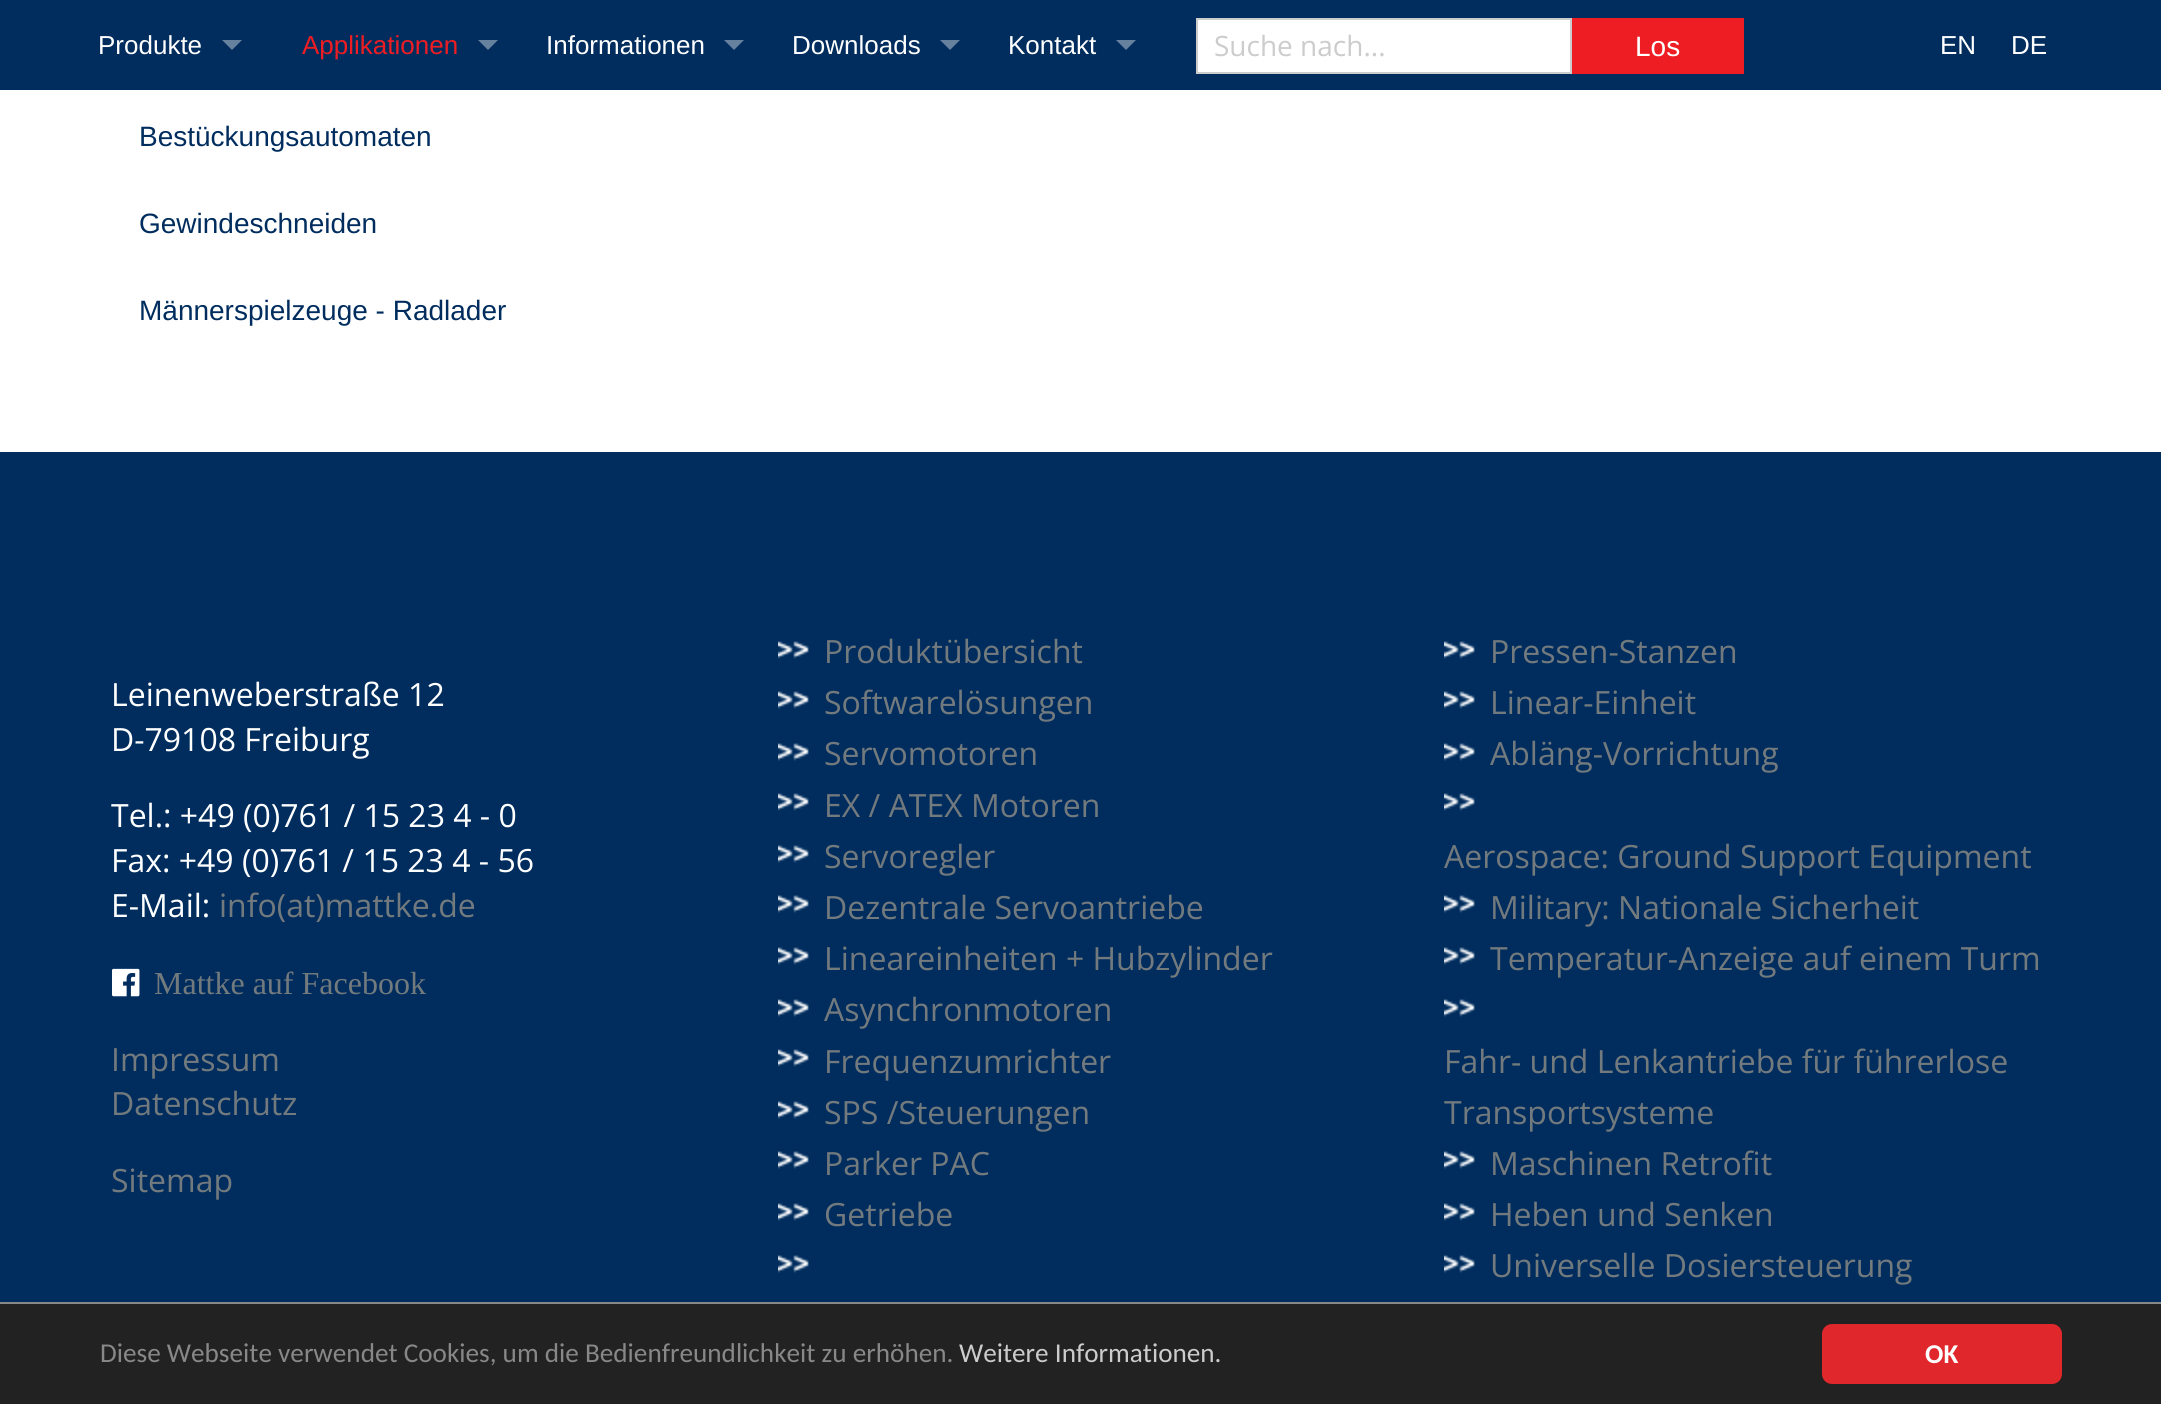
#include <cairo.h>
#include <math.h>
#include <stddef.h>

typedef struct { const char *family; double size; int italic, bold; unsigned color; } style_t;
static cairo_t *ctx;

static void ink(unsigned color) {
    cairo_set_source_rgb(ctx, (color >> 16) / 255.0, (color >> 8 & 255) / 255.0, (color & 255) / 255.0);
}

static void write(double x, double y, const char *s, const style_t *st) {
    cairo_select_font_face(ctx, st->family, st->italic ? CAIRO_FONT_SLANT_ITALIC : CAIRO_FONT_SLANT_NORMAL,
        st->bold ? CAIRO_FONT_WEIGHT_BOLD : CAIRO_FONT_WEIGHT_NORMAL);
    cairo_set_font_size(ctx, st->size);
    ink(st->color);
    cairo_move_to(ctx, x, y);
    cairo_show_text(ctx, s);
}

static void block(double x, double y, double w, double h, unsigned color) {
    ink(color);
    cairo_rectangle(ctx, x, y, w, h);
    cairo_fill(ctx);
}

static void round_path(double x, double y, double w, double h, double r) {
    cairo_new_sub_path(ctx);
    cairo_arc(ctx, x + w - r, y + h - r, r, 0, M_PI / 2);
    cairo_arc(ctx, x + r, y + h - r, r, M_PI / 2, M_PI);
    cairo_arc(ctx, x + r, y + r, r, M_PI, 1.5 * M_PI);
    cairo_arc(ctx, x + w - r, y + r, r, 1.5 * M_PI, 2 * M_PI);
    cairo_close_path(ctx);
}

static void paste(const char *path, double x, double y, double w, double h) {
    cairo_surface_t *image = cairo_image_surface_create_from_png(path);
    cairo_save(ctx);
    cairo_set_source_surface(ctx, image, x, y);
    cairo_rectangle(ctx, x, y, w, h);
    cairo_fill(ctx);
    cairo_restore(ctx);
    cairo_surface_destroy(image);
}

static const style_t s1 = {"Liberation Sans", 26, 0, 0, 0xffffff};
static const style_t s2 = {"Liberation Sans", 26, 0, 0, 0xee1d23};
static const style_t s3 = {"Open Sans", 28, 0, 0, 0xcccccc};
static const style_t s4 = {"Liberation Sans", 28, 0, 0, 0xffffff};
static const style_t s5 = {"Liberation Sans", 28, 0, 0, 0x002d5e};
static const style_t s6 = {"Open Sans", 32, 0, 0, 0xffffff};
static const style_t s7 = {"Open Sans", 32, 0, 0, 0x737a7e};
static const style_t s8 = {"Liberation Serif", 32, 0, 0, 0x737a7e};
static const style_t s9 = {"Carlito", 27.2, 0, 0, 0x888888};
static const style_t s10 = {"Carlito", 27.2, 0, 0, 0xcccccc};
static const style_t s11 = {"Carlito", 27.2, 0, 1, 0xffffff};

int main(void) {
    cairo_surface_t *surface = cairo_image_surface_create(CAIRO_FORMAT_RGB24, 2161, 1404);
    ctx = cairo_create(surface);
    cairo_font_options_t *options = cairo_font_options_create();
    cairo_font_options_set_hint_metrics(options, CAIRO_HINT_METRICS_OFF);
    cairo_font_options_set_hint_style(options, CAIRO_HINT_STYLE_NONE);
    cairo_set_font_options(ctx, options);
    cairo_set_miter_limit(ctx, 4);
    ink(0xffffff);
    cairo_paint(ctx);
    block(0, 0, 2161, 90, 0x002d5e);
    write(98, 54, "Produkte", &s1);
    ink(0x66819e);
    cairo_new_path(ctx);
    cairo_move_to(ctx, 222, 40);
    cairo_line_to(ctx, 242, 40);
    cairo_line_to(ctx, 232, 50);
    cairo_close_path(ctx);
    cairo_fill(ctx);
    write(302, 54, "Applikationen", &s2);
    ink(0x66819e);
    cairo_new_path(ctx);
    cairo_move_to(ctx, 478, 40);
    cairo_line_to(ctx, 498, 40);
    cairo_line_to(ctx, 488, 50);
    cairo_close_path(ctx);
    cairo_fill(ctx);
    write(546, 54, "Informationen", &s1);
    ink(0x66819e);
    cairo_new_path(ctx);
    cairo_move_to(ctx, 724, 40);
    cairo_line_to(ctx, 744, 40);
    cairo_line_to(ctx, 734, 50);
    cairo_close_path(ctx);
    cairo_fill(ctx);
    write(792, 54, "Downloads", &s1);
    ink(0x66819e);
    cairo_new_path(ctx);
    cairo_move_to(ctx, 940, 40);
    cairo_line_to(ctx, 960, 40);
    cairo_line_to(ctx, 950, 50);
    cairo_close_path(ctx);
    cairo_fill(ctx);
    write(1008, 54, "Kontakt", &s1);
    ink(0x66819e);
    cairo_new_path(ctx);
    cairo_move_to(ctx, 1116, 40);
    cairo_line_to(ctx, 1136, 40);
    cairo_line_to(ctx, 1126, 50);
    cairo_close_path(ctx);
    cairo_fill(ctx);
    ink(0xffffff);
    cairo_rectangle(ctx, 1197, 19, 374, 54);
    cairo_fill_preserve(ctx);
    ink(0xcccccc);
    cairo_stroke(ctx);
    write(1214, 56, "Suche nach...", &s3);
    block(1572, 18, 172, 56, 0xee1d23);
    write(1635, 56, "Los", &s4);
    write(1940, 54, "EN", &s1);
    write(2011, 54, "DE", &s1);
    write(139, 146, "Bestückungsautomaten", &s5);
    write(139, 233, "Gewindeschneiden", &s5);
    write(139, 320, "Männerspielzeuge - Radlader", &s5);
    block(0, 452, 2161, 850, 0x002d5e);
    write(111, 706, "Leinenweberstraße 12", &s6);
    write(111, 751, "D-79108 Freiburg", &s6);
    write(111, 827, "Tel.: +49 (0)761 / 15 23 4 - 0", &s6);
    write(111, 872, "Fax: +49 (0)761 / 15 23 4 - 56", &s6);
    write(111, 917, "E-Mail:", &s6);
    write(219, 917, "info(at)mattke.de", &s7);
    paste("pic1.png", 112, 968, 28, 29);
    write(154, 994, "Mattke auf Facebook", &s8);
    write(111, 1071, "Impressum", &s7);
    write(111, 1115, "Datenschutz", &s7);
    write(111, 1192, "Sitemap", &s7);
    paste("pic2.png", 778, 641, 31, 18);
    write(824, 663, "Produktübersicht", &s7);
    paste("pic2.png", 778, 691, 31, 18);
    write(824, 714, "Softwarelösungen", &s7);
    paste("pic2.png", 778, 743, 31, 18);
    write(824, 765, "Servomotoren", &s7);
    paste("pic2.png", 778, 793, 31, 18);
    write(824, 817, "EX / ATEX Motoren", &s7);
    paste("pic2.png", 778, 845, 31, 18);
    write(824, 868, "Servoregler", &s7);
    paste("pic2.png", 778, 895, 31, 18);
    write(824, 919, "Dezentrale Servoantriebe", &s7);
    paste("pic2.png", 778, 947, 31, 18);
    write(824, 970, "Lineareinheiten + Hubzylinder", &s7);
    paste("pic2.png", 778, 999, 31, 18);
    write(824, 1021, "Asynchronmotoren", &s7);
    paste("pic2.png", 778, 1049, 31, 18);
    write(824, 1073, "Frequenzumrichter", &s7);
    paste("pic2.png", 778, 1101, 31, 18);
    write(824, 1124, "SPS /Steuerungen", &s7);
    paste("pic2.png", 778, 1151, 31, 18);
    write(824, 1175, "Parker PAC", &s7);
    paste("pic2.png", 778, 1203, 31, 18);
    write(824, 1226, "Getriebe", &s7);
    paste("pic2.png", 778, 1255, 31, 18);
    paste("pic2.png", 1444, 641, 31, 18);
    write(1490, 663, "Pressen-Stanzen", &s7);
    paste("pic2.png", 1444, 691, 31, 18);
    write(1490, 714, "Linear-Einheit", &s7);
    paste("pic2.png", 1444, 743, 31, 18);
    write(1490, 765, "Abläng-Vorrichtung", &s7);
    paste("pic2.png", 1444, 793, 31, 18);
    write(1444, 868, "Aerospace: Ground Support Equipment", &s7);
    paste("pic2.png", 1444, 895, 31, 18);
    write(1490, 919, "Military: Nationale Sicherheit", &s7);
    paste("pic2.png", 1444, 947, 31, 18);
    write(1490, 970, "Temperatur-Anzeige auf einem Turm", &s7);
    paste("pic2.png", 1444, 999, 31, 18);
    write(1444, 1073, "Fahr- und Lenkantriebe für führerlose", &s7);
    write(1444, 1124, "Transportsysteme", &s7);
    paste("pic2.png", 1444, 1151, 31, 18);
    write(1490, 1175, "Maschinen Retrofit", &s7);
    paste("pic2.png", 1444, 1203, 31, 18);
    write(1490, 1226, "Heben und Senken", &s7);
    paste("pic2.png", 1444, 1255, 31, 18);
    write(1490, 1277, "Universelle Dosiersteuerung", &s7);
    block(0, 1304, 2161, 100, 0x222222);
    block(0, 1302, 2161, 2, 0x888888);
    write(100, 1362, "Diese Webseite verwendet Cookies, um die Bedienfreundlichkeit zu erhöhen.", &s9);
    write(959, 1362, "Weitere Informationen.", &s10);
    ink(0xe0272c);
    round_path(1822, 1324, 240, 60, 10);
    cairo_fill(ctx);
    write(1925, 1363, "OK", &s11);
    cairo_surface_write_to_png(surface, "screenshot.png");
    cairo_font_options_destroy(options);
    cairo_destroy(ctx);
    cairo_surface_destroy(surface);
    return 0;
}
